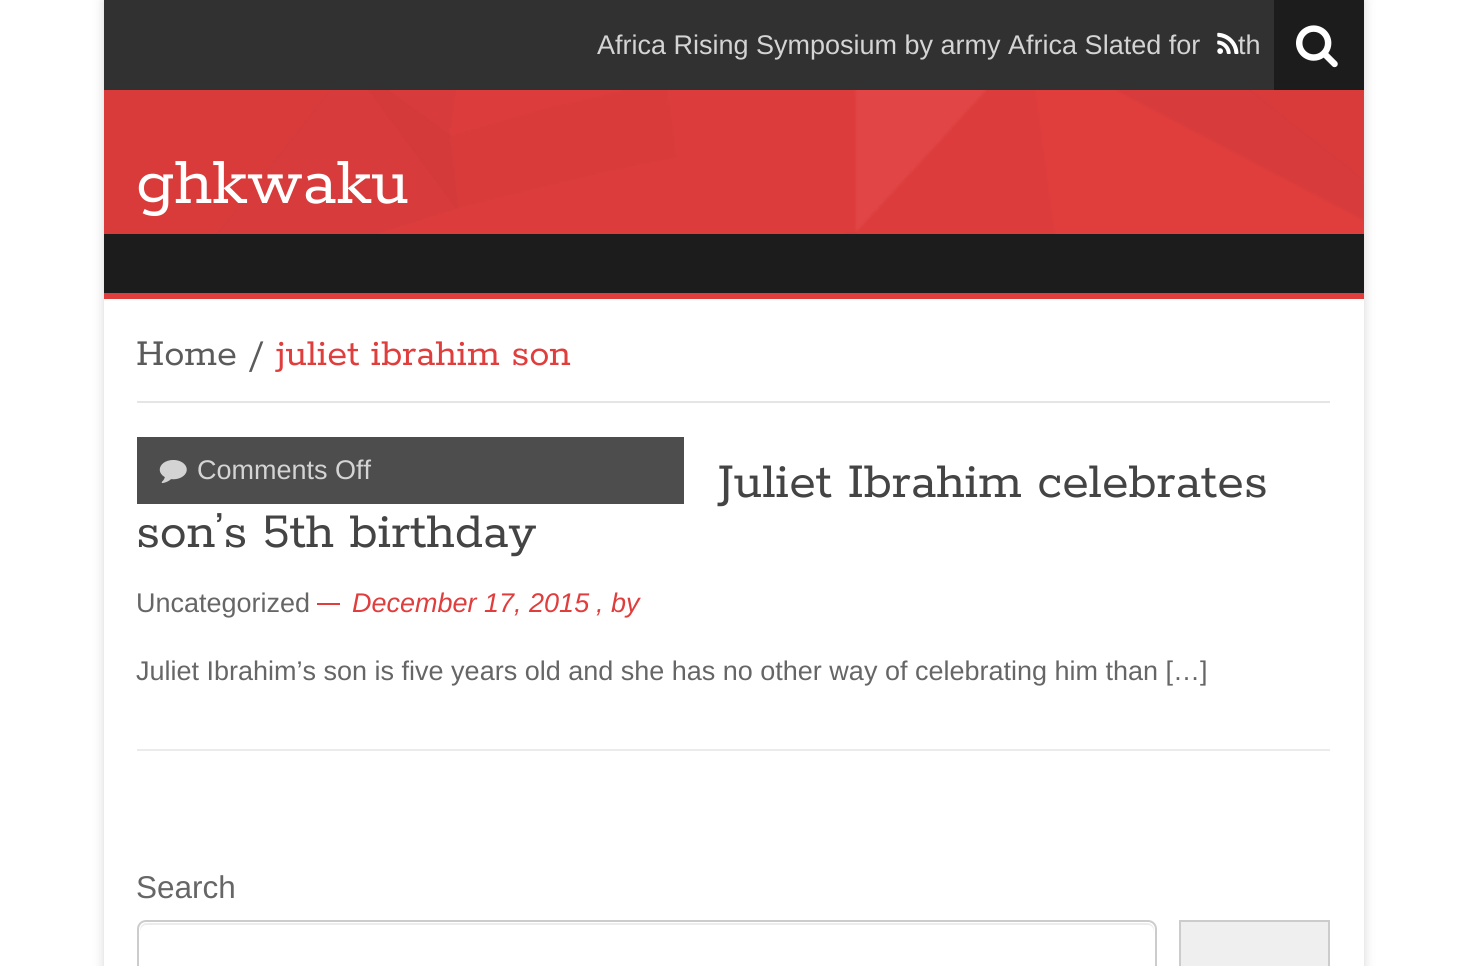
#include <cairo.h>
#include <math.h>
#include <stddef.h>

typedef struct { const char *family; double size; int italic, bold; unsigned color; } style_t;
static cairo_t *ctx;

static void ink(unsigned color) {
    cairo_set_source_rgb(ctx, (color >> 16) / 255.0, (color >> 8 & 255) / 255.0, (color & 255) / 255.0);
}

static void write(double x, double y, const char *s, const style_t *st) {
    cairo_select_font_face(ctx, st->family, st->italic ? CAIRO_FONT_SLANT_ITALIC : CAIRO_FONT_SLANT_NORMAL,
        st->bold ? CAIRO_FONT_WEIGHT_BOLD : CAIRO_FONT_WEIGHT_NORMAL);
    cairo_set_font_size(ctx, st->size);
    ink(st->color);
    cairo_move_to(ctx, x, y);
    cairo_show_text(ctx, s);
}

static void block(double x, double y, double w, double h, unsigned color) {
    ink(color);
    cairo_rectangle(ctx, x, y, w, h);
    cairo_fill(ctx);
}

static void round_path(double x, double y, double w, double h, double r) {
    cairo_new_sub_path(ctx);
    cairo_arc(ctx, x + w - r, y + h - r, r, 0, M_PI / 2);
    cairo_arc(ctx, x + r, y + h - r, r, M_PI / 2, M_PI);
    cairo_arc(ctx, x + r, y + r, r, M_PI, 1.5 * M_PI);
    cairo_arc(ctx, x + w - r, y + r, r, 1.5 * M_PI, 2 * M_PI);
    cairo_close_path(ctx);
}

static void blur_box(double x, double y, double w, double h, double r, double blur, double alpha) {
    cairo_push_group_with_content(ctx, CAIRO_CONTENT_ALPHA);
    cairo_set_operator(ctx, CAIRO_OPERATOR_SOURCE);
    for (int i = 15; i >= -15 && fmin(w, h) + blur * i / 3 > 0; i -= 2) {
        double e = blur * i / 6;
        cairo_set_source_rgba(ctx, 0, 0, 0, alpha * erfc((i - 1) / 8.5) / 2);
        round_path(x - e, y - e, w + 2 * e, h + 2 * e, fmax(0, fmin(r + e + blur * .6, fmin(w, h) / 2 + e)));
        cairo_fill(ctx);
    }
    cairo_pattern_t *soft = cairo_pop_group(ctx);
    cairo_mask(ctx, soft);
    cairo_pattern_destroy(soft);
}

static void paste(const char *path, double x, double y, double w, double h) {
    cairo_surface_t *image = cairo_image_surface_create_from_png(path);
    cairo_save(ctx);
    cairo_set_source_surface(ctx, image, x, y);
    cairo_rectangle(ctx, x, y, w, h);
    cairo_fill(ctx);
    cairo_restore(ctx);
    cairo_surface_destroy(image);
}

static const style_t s1 = {"Liberation Sans", 27, 0, 0, 0xd4d4d4};
static const style_t s2 = {"Rokkitt", 72, 0, 0, 0xffffff};
static const style_t s3 = {"Rokkitt", 40.5, 0, 0, 0x5b5b5b};
static const style_t s4 = {"Rokkitt", 40.5, 0, 0, 0xe03d3d};
static const style_t s5 = {"Rokkitt", 54, 0, 0, 0x444444};
static const style_t s6 = {"Liberation Sans", 27, 0, 0, 0x666666};
static const style_t s7 = {"Liberation Sans", 27, 1, 0, 0xe03d3d};
static const style_t s8 = {"Liberation Sans", 31.5, 0, 0, 0x666666};

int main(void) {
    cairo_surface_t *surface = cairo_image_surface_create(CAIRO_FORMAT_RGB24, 1464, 966);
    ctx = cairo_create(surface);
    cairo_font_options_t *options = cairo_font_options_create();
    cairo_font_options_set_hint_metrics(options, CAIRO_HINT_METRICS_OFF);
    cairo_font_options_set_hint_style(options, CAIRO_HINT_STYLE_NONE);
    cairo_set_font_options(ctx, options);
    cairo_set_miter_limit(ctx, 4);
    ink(0xffffff);
    cairo_paint(ctx);
    ink(0xcacaca);
    blur_box(104, 0, 1260, 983, 0, 5.5, 0.75);
    block(104, 0, 1170, 90, 0x313131);
    write(597, 54, "Africa Rising Symposium by army Africa Slated for", &s1);
    write(1238, 54, "th", &s1);
    paste("pic1.png", 1217, 32, 22, 22);
    block(1274, 0, 90, 90, 0x1c1c1c);
    paste("pic2.png", 1296, 25, 42, 43);
    block(104, 90, 1260, 144, 0xe03d3d);
    paste("pic3.png", 104, 90, 1260, 144);
    write(136, 203, "ghkwaku", &s2);
    block(104, 234, 1260, 59, 0x1c1c1c);
    block(104, 293, 1260, 6, 0xe03d3d);
    block(104, 299, 1260, 667, 0xffffff);
    block(137, 401, 1193, 2, 0xe5e5e5);
    write(136, 365, "Home /", &s3);
    write(276, 365, "juliet ibrahim son", &s4);
    block(137, 749, 1193, 2, 0xebebeb);
    block(137, 437, 547, 67, 0x4d4d4d);
    paste("pic4.png", 159, 460, 28, 24);
    write(197, 479, "Comments Off", &s1);
    write(718, 497, "Juliet Ibrahim celebrates", &s5);
    write(136, 547, "son’s 5th birthday", &s5);
    write(136, 612, "Uncategorized", &s6);
    block(317, 603, 23, 2, 0xe03d3d);
    write(352, 612, "December 17, 2015", &s7);
    write(596, 612, ", by", &s7);
    write(136, 680, "Juliet Ibrahim’s son is five years old and she has no other way of celebrating him than […]", &s6);
    write(136, 898, "Search", &s8);
    ink(0xececec);
    cairo_new_path(ctx);
    cairo_move_to(ctx, 146, 925);
    cairo_line_to(ctx, 1148, 925);
    cairo_curve_to(ctx, 1151, 925, 1154, 928, 1154, 932);
    cairo_line_to(ctx, 1154, 930);
    cairo_curve_to(ctx, 1154, 926, 1151, 923, 1147, 923);
    cairo_line_to(ctx, 147, 923);
    cairo_curve_to(ctx, 143, 923, 140, 926, 140, 930);
    cairo_line_to(ctx, 140, 932);
    cairo_curve_to(ctx, 140, 928, 143, 925, 146, 925);
    cairo_close_path(ctx);
    cairo_fill(ctx);
    round_path(138, 921, 1018, 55, 8);
    ink(0xcccccc);
    cairo_stroke(ctx);
    ink(0xefefef);
    cairo_rectangle(ctx, 1180, 921, 149, 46);
    cairo_fill_preserve(ctx);
    ink(0xcccccc);
    cairo_stroke(ctx);
    cairo_surface_write_to_png(surface, "screenshot.png");
    cairo_font_options_destroy(options);
    cairo_destroy(ctx);
    cairo_surface_destroy(surface);
    return 0;
}
